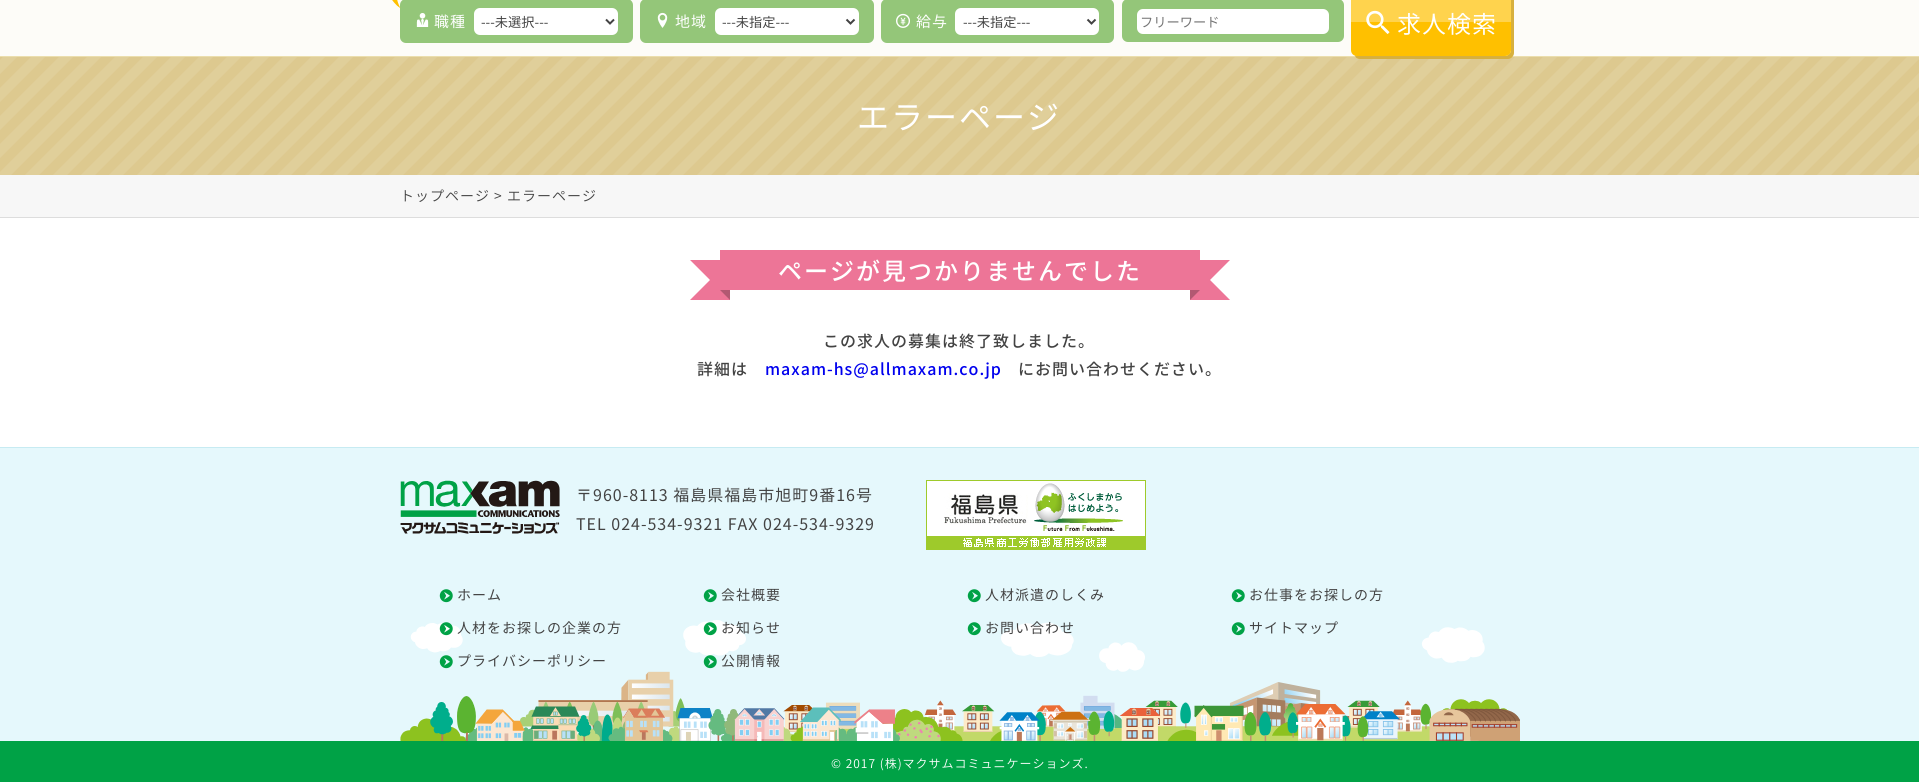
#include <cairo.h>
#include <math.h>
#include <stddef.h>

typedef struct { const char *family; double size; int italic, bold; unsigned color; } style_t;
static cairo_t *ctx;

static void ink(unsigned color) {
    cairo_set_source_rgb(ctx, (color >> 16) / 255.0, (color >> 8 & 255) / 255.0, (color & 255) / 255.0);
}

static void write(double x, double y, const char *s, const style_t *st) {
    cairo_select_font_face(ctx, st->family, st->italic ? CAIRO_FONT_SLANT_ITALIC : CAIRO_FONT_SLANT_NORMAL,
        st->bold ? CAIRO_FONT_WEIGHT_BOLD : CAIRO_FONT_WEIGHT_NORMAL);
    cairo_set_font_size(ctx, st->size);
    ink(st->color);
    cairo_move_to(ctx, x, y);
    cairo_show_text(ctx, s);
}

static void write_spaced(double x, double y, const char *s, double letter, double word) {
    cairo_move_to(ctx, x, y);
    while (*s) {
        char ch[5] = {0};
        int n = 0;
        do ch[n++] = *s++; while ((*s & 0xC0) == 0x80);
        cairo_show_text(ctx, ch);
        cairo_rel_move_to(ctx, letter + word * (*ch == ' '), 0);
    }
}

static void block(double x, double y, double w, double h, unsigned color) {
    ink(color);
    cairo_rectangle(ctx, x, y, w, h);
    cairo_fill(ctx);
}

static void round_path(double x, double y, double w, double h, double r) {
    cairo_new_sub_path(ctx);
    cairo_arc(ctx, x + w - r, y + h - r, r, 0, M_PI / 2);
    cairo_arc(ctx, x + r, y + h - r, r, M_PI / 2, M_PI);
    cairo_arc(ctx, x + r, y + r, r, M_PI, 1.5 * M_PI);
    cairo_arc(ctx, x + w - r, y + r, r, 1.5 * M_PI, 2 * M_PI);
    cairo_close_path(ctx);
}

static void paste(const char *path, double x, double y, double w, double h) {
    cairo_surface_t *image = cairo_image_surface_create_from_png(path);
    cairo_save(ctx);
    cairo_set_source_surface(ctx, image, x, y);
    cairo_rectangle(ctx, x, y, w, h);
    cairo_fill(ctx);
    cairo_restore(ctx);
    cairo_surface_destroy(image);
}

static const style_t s1 = {"Noto Sans JP", 13.25, 0, 0, 0x434343};
static const style_t s2 = {"Noto Sans JP", 13.25, 0, 0, 0x757575};

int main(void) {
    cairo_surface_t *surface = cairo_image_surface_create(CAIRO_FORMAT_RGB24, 1919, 782);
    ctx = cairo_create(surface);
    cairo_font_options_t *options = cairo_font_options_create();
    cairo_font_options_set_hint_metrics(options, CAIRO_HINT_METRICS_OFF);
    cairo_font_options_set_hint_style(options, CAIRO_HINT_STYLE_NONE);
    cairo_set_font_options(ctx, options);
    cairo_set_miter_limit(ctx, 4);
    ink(0xffffff);
    cairo_paint(ctx);
    block(0, 0, 1919, 56, 0xfdfcf8);
    block(0, 56, 1919, 1, 0xebdead);
    ink(0x94c679);
    round_path(400, -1, 233, 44, 6);
    cairo_fill(ctx);
    paste("pic1.png", 392, 0, 9, 8);
    paste("pic2.png", 416, 13, 13, 14);
    cairo_select_font_face(ctx, "Noto Sans JP", CAIRO_FONT_SLANT_NORMAL, CAIRO_FONT_WEIGHT_NORMAL);
    cairo_set_font_size(ctx, 15);
    ink(0xffffff);
    write_spaced(434, 27, "職種", 1, 0);
    round_path(474, 8, 144, 27, 6);
    cairo_fill(ctx);
    cairo_new_path(ctx);
    cairo_move_to(ctx, 606, 19.5);
    cairo_line_to(ctx, 610, 23.5);
    cairo_line_to(ctx, 614, 19.5);
    ink(0x434343);
    cairo_stroke(ctx);
    write(481, 27, "---未選択---", &s1);
    ink(0x94c679);
    round_path(640, -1, 234, 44, 6);
    cairo_fill(ctx);
    paste("pic3.png", 657, 12, 11, 16);
    cairo_set_font_size(ctx, 15);
    ink(0xffffff);
    write_spaced(675, 27, "地域", 1, 0);
    round_path(715, 8, 144, 27, 6);
    cairo_fill(ctx);
    cairo_new_path(ctx);
    cairo_move_to(ctx, 846.5, 19.5);
    cairo_line_to(ctx, 850.5, 23.5);
    cairo_line_to(ctx, 854.5, 19.5);
    ink(0x434343);
    cairo_stroke(ctx);
    write(722, 27, "---未指定---", &s1);
    ink(0x94c679);
    round_path(881, -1, 233, 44, 6);
    cairo_fill(ctx);
    paste("pic4.png", 896, 13, 14, 15);
    cairo_set_font_size(ctx, 15);
    ink(0xffffff);
    write_spaced(916, 27, "給与", 1, 0);
    round_path(955, 8, 144, 27, 6);
    cairo_fill(ctx);
    cairo_new_path(ctx);
    cairo_move_to(ctx, 1087.5, 19.5);
    cairo_line_to(ctx, 1091.5, 23.5);
    cairo_line_to(ctx, 1095.5, 19.5);
    ink(0x434343);
    cairo_stroke(ctx);
    write(963, 27, "---未指定---", &s1);
    ink(0x94c679);
    round_path(1122, -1, 222, 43, 6);
    cairo_fill(ctx);
    ink(0xffffff);
    round_path(1137, 9, 192, 25, 6);
    cairo_fill(ctx);
    write(1140, 27, "フリーワード", &s2);
    paste("pic6.png", 0, 57, 1919, 118);
    ink(0xd7b03e);
    cairo_new_path(ctx);
    cairo_move_to(ctx, 1355, 55);
    cairo_curve_to(ctx, 1355, 58, 1358, 59, 1360, 59);
    cairo_line_to(ctx, 1508, 59);
    cairo_curve_to(ctx, 1511, 59, 1514, 56, 1514, 53);
    cairo_line_to(ctx, 1514, -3);
    cairo_curve_to(ctx, 1514, -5, 1513, -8, 1510, -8);
    cairo_line_to(ctx, 1511, -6);
    cairo_line_to(ctx, 1511, 50);
    cairo_curve_to(ctx, 1511, 53, 1508, 56, 1505, 56);
    cairo_line_to(ctx, 1357, 56);
    cairo_close_path(ctx);
    cairo_fill(ctx);
    block(1351, 0, 160, 22, 0xffd34d);
    ink(0xffc000);
    cairo_new_path(ctx);
    cairo_move_to(ctx, 1351, 22);
    cairo_line_to(ctx, 1511, 22);
    cairo_line_to(ctx, 1511, 50);
    cairo_curve_to(ctx, 1511, 53.5, 1508.5, 56, 1505, 56);
    cairo_line_to(ctx, 1357, 56);
    cairo_curve_to(ctx, 1353.5, 56, 1351, 53.5, 1351, 50);
    cairo_close_path(ctx);
    cairo_fill(ctx);
    paste("pic5.png", 1366, 10, 24, 24);
    cairo_set_font_size(ctx, 24);
    ink(0xffffff);
    write_spaced(1397, 33, "求人検索", 1, 0);
    cairo_set_font_size(ctx, 32);
    write_spaced(857, 129, "エラーページ", 2, 0);
    block(0, 175, 1919, 42, 0xf7f7f7);
    block(0, 217, 1919, 1, 0xdddddd);
    cairo_select_font_face(ctx, "Noto Sans JP Light", CAIRO_FONT_SLANT_NORMAL, CAIRO_FONT_WEIGHT_NORMAL);
    cairo_set_font_size(ctx, 14);
    ink(0x434343);
    write_spaced(400, 201, "トップページ > エラーページ", 1, 0);
    block(720, 250, 480, 40, 0xed7597);
    cairo_new_path(ctx);
    cairo_move_to(ctx, 690, 260);
    cairo_line_to(ctx, 730, 260);
    cairo_line_to(ctx, 710, 280);
    cairo_close_path(ctx);
    cairo_fill(ctx);
    block(710, 270, 20, 30, 0xed7597);
    cairo_new_path(ctx);
    cairo_move_to(ctx, 730, 300);
    cairo_line_to(ctx, 690, 300);
    cairo_line_to(ctx, 710, 280);
    cairo_close_path(ctx);
    cairo_fill(ctx);
    cairo_select_font_face(ctx, "Noto Sans JP Medium", CAIRO_FONT_SLANT_NORMAL, CAIRO_FONT_WEIGHT_NORMAL);
    cairo_set_font_size(ctx, 24);
    ink(0xffffff);
    write_spaced(778, 280, "ページが見つかりませんでした", 2, 0);
    ink(0xb25872);
    cairo_new_path(ctx);
    cairo_move_to(ctx, 720, 290);
    cairo_line_to(ctx, 730, 290);
    cairo_line_to(ctx, 730, 300);
    cairo_close_path(ctx);
    cairo_fill(ctx);
    ink(0xed7597);
    cairo_new_path(ctx);
    cairo_move_to(ctx, 1190, 260);
    cairo_line_to(ctx, 1230, 260);
    cairo_line_to(ctx, 1210, 280);
    cairo_close_path(ctx);
    cairo_move_to(ctx, 1230, 300);
    cairo_line_to(ctx, 1190, 300);
    cairo_line_to(ctx, 1210, 280);
    cairo_close_path(ctx);
    cairo_fill(ctx);
    block(1190, 270, 20, 30, 0xed7597);
    ink(0xb25872);
    cairo_new_path(ctx);
    cairo_move_to(ctx, 1190, 290);
    cairo_line_to(ctx, 1200, 290);
    cairo_line_to(ctx, 1190, 300);
    cairo_close_path(ctx);
    cairo_fill(ctx);
    cairo_set_font_size(ctx, 16);
    ink(0x434343);
    write_spaced(823, 347, "この求人の募集は終了致しました。", 1, 0);
    write_spaced(697, 375, "詳細は", 1, 0);
    ink(0x0000ee);
    write_spaced(765, 375, "maxam-hs@allmaxam.co.jp", 1, 0);
    ink(0x434343);
    write_spaced(1018, 375, "にお問い合わせください。", 1, 0);
    block(0, 448, 1919, 293, 0xe5f8fc);
    block(0, 447, 1919, 1, 0xc7ebf2);
    paste("pic7.png", 400, 620, 1120, 121);
    paste("pic8.png", 400, 480, 160, 54);
    cairo_select_font_face(ctx, "Noto Sans JP", CAIRO_FONT_SLANT_NORMAL, CAIRO_FONT_WEIGHT_NORMAL);
    ink(0x434343);
    write_spaced(576, 501, "〒960-8113 福島県福島市旭町9番16号", 1, 0);
    write_spaced(576, 530, "TEL 024-534-9321 FAX 024-534-9329", 1, 0);
    paste("pic9.png", 926, 480, 220, 70);
    paste("pic10.png", 439, 589, 14, 14);
    cairo_set_font_size(ctx, 14);
    write_spaced(457, 600, "ホーム", 1, 0);
    paste("pic10.png", 703, 589, 14, 14);
    write_spaced(721, 600, "会社概要", 1, 0);
    paste("pic10.png", 967, 589, 14, 14);
    write_spaced(985, 600, "人材派遣のしくみ", 1, 0);
    paste("pic10.png", 1231, 589, 14, 14);
    write_spaced(1249, 600, "お仕事をお探しの方", 1, 0);
    paste("pic11.png", 439, 622, 14, 14);
    write_spaced(457, 633, "人材をお探しの企業の方", 1, 0);
    paste("pic12.png", 703, 622, 14, 14);
    write_spaced(721, 633, "お知らせ", 1, 0);
    paste("pic10.png", 967, 622, 14, 14);
    write_spaced(985, 633, "お問い合わせ", 1, 0);
    paste("pic10.png", 1231, 622, 14, 14);
    write_spaced(1249, 633, "サイトマップ", 1, 0);
    paste("pic10.png", 439, 655, 14, 14);
    write_spaced(457, 666, "プライバシーポリシー", 1, 0);
    paste("pic13.png", 703, 655, 14, 14);
    write_spaced(721, 666, "公開情報", 1, 0);
    block(0, 741, 1919, 41, 0x00a246);
    cairo_select_font_face(ctx, "Noto Sans JP Light", CAIRO_FONT_SLANT_NORMAL, CAIRO_FONT_WEIGHT_NORMAL);
    cairo_set_font_size(ctx, 12);
    ink(0xffffff);
    write_spaced(831, 768, "© 2017 (株)マクサムコミュニケーションズ.", 1, 0);
    cairo_surface_write_to_png(surface, "screenshot.png");
    cairo_font_options_destroy(options);
    cairo_destroy(ctx);
    cairo_surface_destroy(surface);
    return 0;
}
